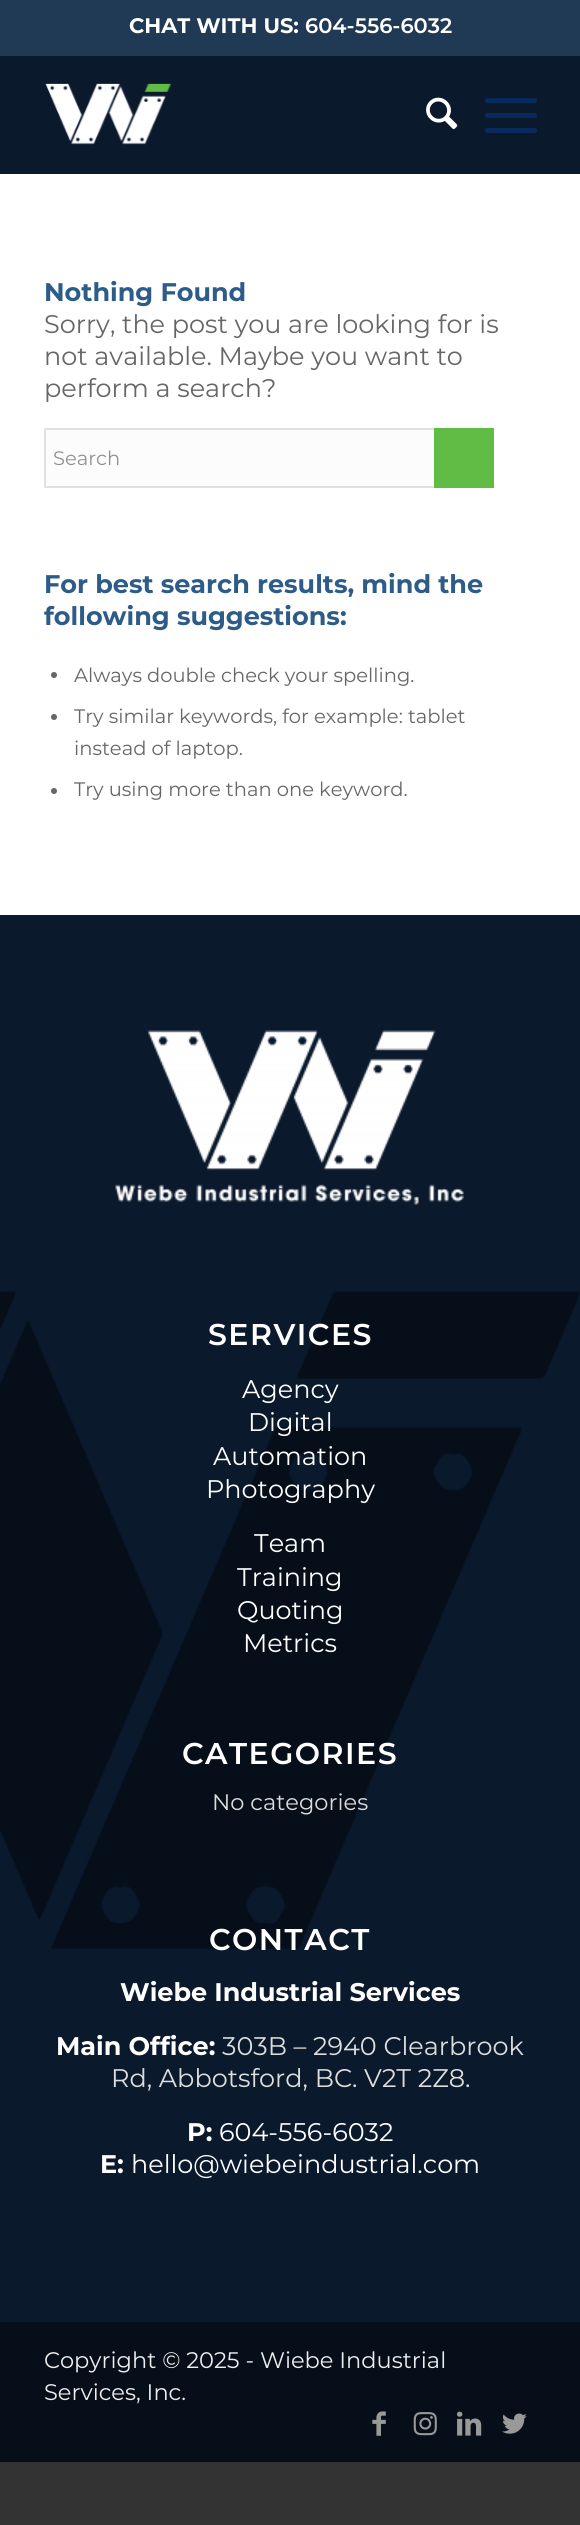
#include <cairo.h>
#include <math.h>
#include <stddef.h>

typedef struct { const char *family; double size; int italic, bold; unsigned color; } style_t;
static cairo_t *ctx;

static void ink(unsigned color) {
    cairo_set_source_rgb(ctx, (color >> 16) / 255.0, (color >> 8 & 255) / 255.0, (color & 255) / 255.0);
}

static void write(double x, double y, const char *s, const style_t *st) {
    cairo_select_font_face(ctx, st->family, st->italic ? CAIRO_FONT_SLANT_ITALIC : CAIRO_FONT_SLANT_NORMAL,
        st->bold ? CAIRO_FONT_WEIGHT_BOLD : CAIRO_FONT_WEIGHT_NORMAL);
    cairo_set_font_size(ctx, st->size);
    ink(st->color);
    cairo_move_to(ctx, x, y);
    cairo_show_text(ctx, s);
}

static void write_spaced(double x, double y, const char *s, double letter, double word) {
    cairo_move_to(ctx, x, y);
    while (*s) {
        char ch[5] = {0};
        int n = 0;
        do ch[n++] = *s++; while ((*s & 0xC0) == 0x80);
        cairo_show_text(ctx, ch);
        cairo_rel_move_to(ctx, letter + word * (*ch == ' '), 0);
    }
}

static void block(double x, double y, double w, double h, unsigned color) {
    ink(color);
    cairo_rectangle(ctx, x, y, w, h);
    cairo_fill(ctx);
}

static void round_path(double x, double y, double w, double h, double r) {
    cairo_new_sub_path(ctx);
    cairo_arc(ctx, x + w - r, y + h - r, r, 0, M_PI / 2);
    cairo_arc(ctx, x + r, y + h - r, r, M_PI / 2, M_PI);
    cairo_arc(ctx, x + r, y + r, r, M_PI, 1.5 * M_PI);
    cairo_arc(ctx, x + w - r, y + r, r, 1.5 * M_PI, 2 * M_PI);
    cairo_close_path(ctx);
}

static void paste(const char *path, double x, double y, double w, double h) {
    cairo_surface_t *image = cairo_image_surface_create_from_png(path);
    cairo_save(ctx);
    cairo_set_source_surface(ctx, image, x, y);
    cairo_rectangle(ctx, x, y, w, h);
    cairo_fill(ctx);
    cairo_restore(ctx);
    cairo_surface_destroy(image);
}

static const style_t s1 = {"Montserrat", 21, 0, 1, 0xffffff};
static const style_t s2 = {"Montserrat SemiBold", 21, 0, 0, 0xffffff};
static const style_t s3 = {"Montserrat", 25.5, 0, 1, 0x2d5c88};
static const style_t s4 = {"Montserrat", 25.5, 0, 0, 0x666666};
static const style_t s5 = {"Montserrat", 19.5, 0, 0, 0x919191};
static const style_t s6 = {"Montserrat", 19.5, 0, 0, 0x666666};
static const style_t s7 = {"Montserrat", 25.5, 0, 0, 0xffffff};
static const style_t s8 = {"Montserrat", 22.5, 0, 0, 0xdddddd};
static const style_t s9 = {"Montserrat", 25.5, 0, 1, 0xffffff};
static const style_t s10 = {"Montserrat", 25.5, 0, 0, 0xdddddd};
static const style_t s11 = {"Montserrat", 22.5, 0, 0, 0xeeeeee};

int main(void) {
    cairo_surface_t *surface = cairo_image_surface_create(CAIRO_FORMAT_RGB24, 580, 2525);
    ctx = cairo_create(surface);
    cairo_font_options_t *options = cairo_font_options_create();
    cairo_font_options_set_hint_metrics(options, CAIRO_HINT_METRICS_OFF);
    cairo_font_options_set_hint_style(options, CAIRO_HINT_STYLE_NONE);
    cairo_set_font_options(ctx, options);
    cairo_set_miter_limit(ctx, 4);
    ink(0x333333);
    cairo_paint(ctx);
    block(0, 0, 580, 56, 0x203a55);
    write(129, 33, "CHAT WITH US:", &s1);
    write(305, 33, "604-556-6032", &s2);
    block(0, 56, 580, 118, 0x0b192d);
    paste("pic1.png", 45, 83, 127, 62);
    paste("pic2.png", 426, 97, 32, 32);
    ink(0x092a5c);
    round_path(485, 113, 52, 5, 2.5);
    cairo_fill(ctx);
    round_path(485, 98, 52, 5, 2.5);
    cairo_fill(ctx);
    round_path(485, 128, 52, 5, 2.5);
    cairo_fill(ctx);
    block(0, 174, 580, 741, 0xffffff);
    write(44, 301, "Nothing Found", &s3);
    write(44, 333, "Sorry, the post you are looking for is", &s4);
    write(44, 365, "not available. Maybe you want to", &s4);
    write(44, 397, "perform a search?", &s4);
    block(46, 430, 388, 56, 0xfcfcfc);
    cairo_rectangle(ctx, 45, 429, 448, 58);
    ink(0xe1e1e1);
    cairo_stroke(ctx);
    write(53, 465, "Search", &s5);
    block(434, 428, 60, 60, 0x61bc46);
    write(44, 593, "For best search results, mind the", &s3);
    write(44, 625, "following suggestions:", &s3);
    ink(0x666666);
    cairo_new_path(ctx);
    cairo_arc(ctx, 54, 675, 3, 0, 2 * M_PI);
    cairo_fill(ctx);
    write(74, 682, "Always double check your spelling.", &s6);
    cairo_new_path(ctx);
    cairo_arc(ctx, 54, 717, 3, 0, 2 * M_PI);
    cairo_fill(ctx);
    write(74, 723, "Try similar keywords, for example: tablet", &s6);
    write(74, 755, "instead of laptop.", &s6);
    cairo_new_path(ctx);
    cairo_arc(ctx, 54, 791, 3, 0, 2 * M_PI);
    cairo_fill(ctx);
    write(74, 796, "Try using more than one keyword.", &s6);
    block(0, 915, 580, 1407, 0x0b192d);
    paste("pic3.png", 0, 1291, 580, 659);
    paste("pic4.png", 115, 1030, 349, 175);
    cairo_select_font_face(ctx, "Montserrat SemiBold", CAIRO_FONT_SLANT_NORMAL, CAIRO_FONT_WEIGHT_NORMAL);
    cairo_set_font_size(ctx, 30);
    ink(0xffffff);
    write_spaced(208, 1345, "SERVICES", 1.5, 0);
    write(242, 1398, "Agency", &s7);
    write(248, 1431, "Digital", &s7);
    write(213, 1465, "Automation", &s7);
    write(206, 1498, "Photography", &s7);
    write(254, 1552, "Team", &s7);
    write(237, 1586, "Training", &s7);
    write(237, 1619, "Quoting", &s7);
    write(243, 1652, "Metrics", &s7);
    cairo_select_font_face(ctx, "Montserrat SemiBold", CAIRO_FONT_SLANT_NORMAL, CAIRO_FONT_WEIGHT_NORMAL);
    cairo_set_font_size(ctx, 30);
    write_spaced(182, 1764, "CATEGORIES", 1.5, 0);
    write(212, 1810, "No categories", &s8);
    cairo_select_font_face(ctx, "Montserrat SemiBold", CAIRO_FONT_SLANT_NORMAL, CAIRO_FONT_WEIGHT_NORMAL);
    cairo_set_font_size(ctx, 30);
    ink(0xffffff);
    write_spaced(209, 1950, "CONTACT", 1.5, 0);
    write(120, 2001, "Wiebe Industrial Services", &s9);
    write(56, 2055, "Main Office:", &s9);
    write(222, 2055, "303B – 2940 Clearbrook", &s10);
    write(111, 2087, "Rd, Abbotsford, BC. V2T 2Z8.", &s10);
    write(187, 2141, "P:", &s9);
    write(219, 2141, "604-556-6032", &s7);
    write(100, 2173, "E:", &s9);
    write(131, 2173, "hello@wiebeindustrial.com", &s7);
    block(0, 2322, 580, 140, 0x050e19);
    write(44, 2368, "Copyright © 2025 - Wiebe Industrial", &s11);
    write(44, 2400, "Services, Inc.", &s11);
    paste("pic5.png", 372, 2411, 14, 25);
    paste("pic6.png", 413, 2412, 24, 24);
    paste("pic7.png", 456, 2411, 26, 25);
    paste("pic8.png", 502, 2413, 25, 21);
    cairo_surface_write_to_png(surface, "screenshot.png");
    cairo_font_options_destroy(options);
    cairo_destroy(ctx);
    cairo_surface_destroy(surface);
    return 0;
}
